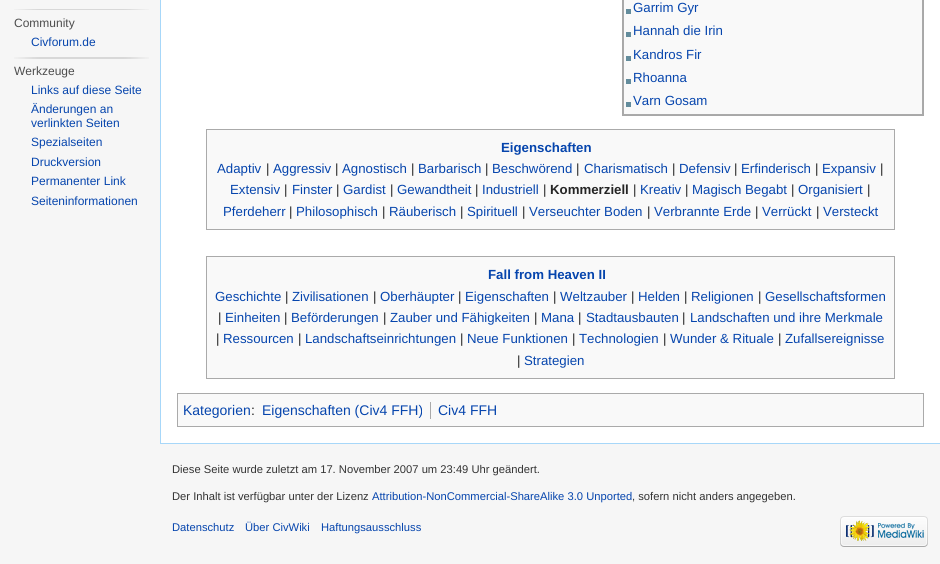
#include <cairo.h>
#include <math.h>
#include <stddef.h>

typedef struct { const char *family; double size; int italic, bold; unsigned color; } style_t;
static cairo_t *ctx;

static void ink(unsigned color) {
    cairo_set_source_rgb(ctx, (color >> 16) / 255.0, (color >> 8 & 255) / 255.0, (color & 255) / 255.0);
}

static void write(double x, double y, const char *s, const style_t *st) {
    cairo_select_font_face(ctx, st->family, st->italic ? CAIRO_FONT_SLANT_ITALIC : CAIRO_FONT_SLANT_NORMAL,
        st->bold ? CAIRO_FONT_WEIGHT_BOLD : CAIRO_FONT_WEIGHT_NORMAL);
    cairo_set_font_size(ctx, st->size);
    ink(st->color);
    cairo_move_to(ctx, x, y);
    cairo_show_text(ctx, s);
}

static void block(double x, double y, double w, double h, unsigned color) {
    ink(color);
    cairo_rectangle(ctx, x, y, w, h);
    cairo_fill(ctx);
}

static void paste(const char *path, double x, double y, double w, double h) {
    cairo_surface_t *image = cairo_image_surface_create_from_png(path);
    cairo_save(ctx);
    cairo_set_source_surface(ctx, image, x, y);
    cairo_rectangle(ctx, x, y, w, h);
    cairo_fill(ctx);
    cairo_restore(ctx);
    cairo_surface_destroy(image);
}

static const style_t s1 = {"Liberation Sans", 12, 0, 0, 0x4d4d4d};
static const style_t s2 = {"Liberation Sans", 12, 0, 0, 0x0645ad};
static const style_t s3 = {"Liberation Sans", 13.25, 0, 0, 0x0645ad};
static const style_t s4 = {"Liberation Sans", 13.25, 0, 1, 0x0645ad};
static const style_t s5 = {"Liberation Sans", 13.25, 0, 0, 0x252525};
static const style_t s6 = {"Liberation Sans", 13.25, 0, 1, 0x252525};
static const style_t s7 = {"Liberation Sans", 14, 0, 0, 0x0645ad};
static const style_t s8 = {"Liberation Sans", 14, 0, 0, 0x252525};
static const style_t s9 = {"Liberation Sans", 11.2, 0, 0, 0x333333};
static const style_t s10 = {"Liberation Sans", 11.2, 0, 0, 0x0645ad};

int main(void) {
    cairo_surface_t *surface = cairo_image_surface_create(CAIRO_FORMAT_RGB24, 940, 564);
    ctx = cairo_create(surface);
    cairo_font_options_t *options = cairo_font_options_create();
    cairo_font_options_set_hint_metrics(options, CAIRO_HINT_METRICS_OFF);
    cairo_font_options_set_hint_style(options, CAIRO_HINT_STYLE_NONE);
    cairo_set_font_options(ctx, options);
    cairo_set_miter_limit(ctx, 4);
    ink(0xf6f6f6);
    cairo_paint(ctx);
    paste("pic1.png", 14, 9, 135, 1);
    write(14, 27, "Community", &s1);
    write(31, 46, "Civforum.de", &s2);
    paste("pic2.png", 14, 57, 135, 2);
    write(14, 75, "Werkzeuge", &s1);
    write(31, 94, "Links auf diese Seite", &s2);
    write(31, 113, "Änderungen an", &s2);
    write(31, 127, "verlinkten Seiten", &s2);
    write(31, 146, "Spezialseiten", &s2);
    write(31, 166, "Druckversion", &s2);
    write(31, 185, "Permanenter Link", &s2);
    write(31, 205, "Seiteninformationen", &s2);
    block(161, 0, 779, 443, 0xffffff);
    block(160, 443, 780, 1, 0xa7d7f9);
    block(160, 0, 1, 444, 0xa7d7f9);
    cairo_rectangle(ctx, 622.5, -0.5, 301, 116);
    ink(0xa8a8a8);
    cairo_set_line_width(ctx, 1);
    cairo_stroke(ctx);
    block(624, 0, 298, 114, 0xf9f9f9);
    block(922, 0, 1, 115, 0xaaaaaa);
    block(623, 114, 300, 1, 0xaaaaaa);
    block(623, 0, 1, 115, 0xaaaaaa);
    block(626, 9, 5, 5, 0x638c9c);
    write(633, 12, "Garrim Gyr", &s3);
    block(626, 32, 5, 5, 0x638c9c);
    write(633, 35, "Hannah die Irin", &s3);
    block(626, 56, 5, 5, 0x638c9c);
    write(633, 59, "Kandros Fir", &s3);
    block(626, 79, 5, 5, 0x638c9c);
    write(633, 82, "Rhoanna", &s3);
    block(626, 102, 5, 5, 0x638c9c);
    write(633, 105, "Varn Gosam", &s3);
    ink(0xf9f9f9);
    cairo_rectangle(ctx, 206.5, 129.5, 688, 100);
    cairo_fill_preserve(ctx);
    ink(0xaaaaaa);
    cairo_stroke(ctx);
    write(501, 152, "Eigenschaften", &s4);
    write(217, 173, "Adaptiv", &s3);
    write(266, 173, "|", &s5);
    write(273, 173, "Aggressiv", &s3);
    write(335, 173, "|", &s5);
    write(342, 173, "Agnostisch", &s3);
    write(411, 173, "|", &s5);
    write(418, 173, "Barbarisch", &s3);
    write(485, 173, "|", &s5);
    write(492, 173, "Beschwörend", &s3);
    write(576, 173, "|", &s5);
    write(584, 173, "Charismatisch", &s3);
    write(672, 173, "|", &s5);
    write(679, 173, "Defensiv", &s3);
    write(734, 173, "|", &s5);
    write(741, 173, "Erfinderisch", &s3);
    write(815, 173, "|", &s5);
    write(822, 173, "Expansiv", &s3);
    write(880, 173, "|", &s5);
    write(230, 194, "Extensiv", &s3);
    write(284, 194, "|", &s5);
    write(292, 194, "Finster", &s3);
    write(336, 194, "|", &s5);
    write(343, 194, "Gardist", &s3);
    write(390, 194, "|", &s5);
    write(397, 194, "Gewandtheit", &s3);
    write(475, 194, "|", &s5);
    write(482, 194, "Industriell", &s3);
    write(543, 194, "|", &s5);
    write(550, 194, "Kommerziell", &s6);
    write(633, 194, "|", &s5);
    write(640, 194, "Kreativ", &s3);
    write(685, 194, "|", &s5);
    write(692, 194, "Magisch Begabt", &s3);
    write(791, 194, "|", &s5);
    write(798, 194, "Organisiert", &s3);
    write(867, 194, "|", &s5);
    write(223, 216, "Pferdeherr", &s3);
    write(289, 216, "|", &s5);
    write(296, 216, "Philosophisch", &s3);
    write(382, 216, "|", &s5);
    write(389, 216, "Räuberisch", &s3);
    write(460, 216, "|", &s5);
    write(467, 216, "Spirituell", &s3);
    write(522, 216, "|", &s5);
    write(529, 216, "Verseuchter Boden", &s3);
    write(647, 216, "|", &s5);
    write(654, 216, "Verbrannte Erde", &s3);
    write(755, 216, "|", &s5);
    write(762, 216, "Verrückt", &s3);
    write(816, 216, "|", &s5);
    write(823, 216, "Versteckt", &s3);
    ink(0xf9f9f9);
    cairo_rectangle(ctx, 206.5, 256.5, 688, 122);
    cairo_fill_preserve(ctx);
    ink(0xaaaaaa);
    cairo_stroke(ctx);
    write(488, 279, "Fall from Heaven II", &s4);
    write(215, 301, "Geschichte", &s3);
    write(285, 301, "|", &s5);
    write(292, 301, "Zivilisationen", &s3);
    write(373, 301, "|", &s5);
    write(380, 301, "Oberhäupter", &s3);
    write(458, 301, "|", &s5);
    write(465, 301, "Eigenschaften", &s3);
    write(553, 301, "|", &s5);
    write(560, 301, "Weltzauber", &s3);
    write(631, 301, "|", &s5);
    write(638, 301, "Helden", &s3);
    write(684, 301, "|", &s5);
    write(691, 301, "Religionen", &s3);
    write(758, 301, "|", &s5);
    write(765, 301, "Gesellschaftsformen", &s3);
    write(218, 322, "|", &s5);
    write(225, 322, "Einheiten", &s3);
    write(284, 322, "|", &s5);
    write(291, 322, "Beförderungen", &s3);
    write(383, 322, "|", &s5);
    write(390, 322, "Zauber und Fähigkeiten", &s3);
    write(534, 322, "|", &s5);
    write(541, 322, "Mana", &s3);
    write(578, 322, "|", &s5);
    write(586, 322, "Stadtausbauten", &s3);
    write(682, 322, "|", &s5);
    write(690, 322, "Landschaften und ihre Merkmale", &s3);
    write(216, 343, "|", &s5);
    write(223, 343, "Ressourcen", &s3);
    write(298, 343, "|", &s5);
    write(305, 343, "Landschaftseinrichtungen", &s3);
    write(460, 343, "|", &s5);
    write(467, 343, "Neue Funktionen", &s3);
    write(572, 343, "|", &s5);
    write(579, 343, "Technologien", &s3);
    write(663, 343, "|", &s5);
    write(670, 343, "Wunder & Rituale", &s3);
    write(778, 343, "|", &s5);
    write(785, 343, "Zufallsereignisse", &s3);
    write(517, 365, "|", &s5);
    write(524, 365, "Strategien", &s3);
    ink(0xf9f9f9);
    cairo_rectangle(ctx, 177.5, 393.5, 746, 33);
    cairo_fill_preserve(ctx);
    ink(0xaaaaaa);
    cairo_stroke(ctx);
    write(183, 415, "Kategorien", &s7);
    write(251, 415, ":", &s8);
    write(262, 415, "Eigenschaften (Civ4 FFH)", &s7);
    block(430, 402, 1, 17, 0xaaaaaa);
    write(438, 415, "Civ4 FFH", &s7);
    write(172, 473, "Diese Seite wurde zuletzt am 17. November 2007 um 23:49 Uhr geändert.", &s9);
    write(172, 500, "Der Inhalt ist verfügbar unter der Lizenz", &s9);
    write(372, 500, "Attribution-NonCommercial-ShareAlike 3.0 Unported", &s10);
    write(632, 500, ", sofern nicht anders angegeben.", &s9);
    write(172, 531, "Datenschutz", &s10);
    write(245, 531, "Über CivWiki", &s10);
    write(321, 531, "Haftungsausschluss", &s10);
    paste("pic3.png", 840, 516, 88, 31);
    cairo_surface_write_to_png(surface, "screenshot.png");
    cairo_font_options_destroy(options);
    cairo_destroy(ctx);
    cairo_surface_destroy(surface);
    return 0;
}
